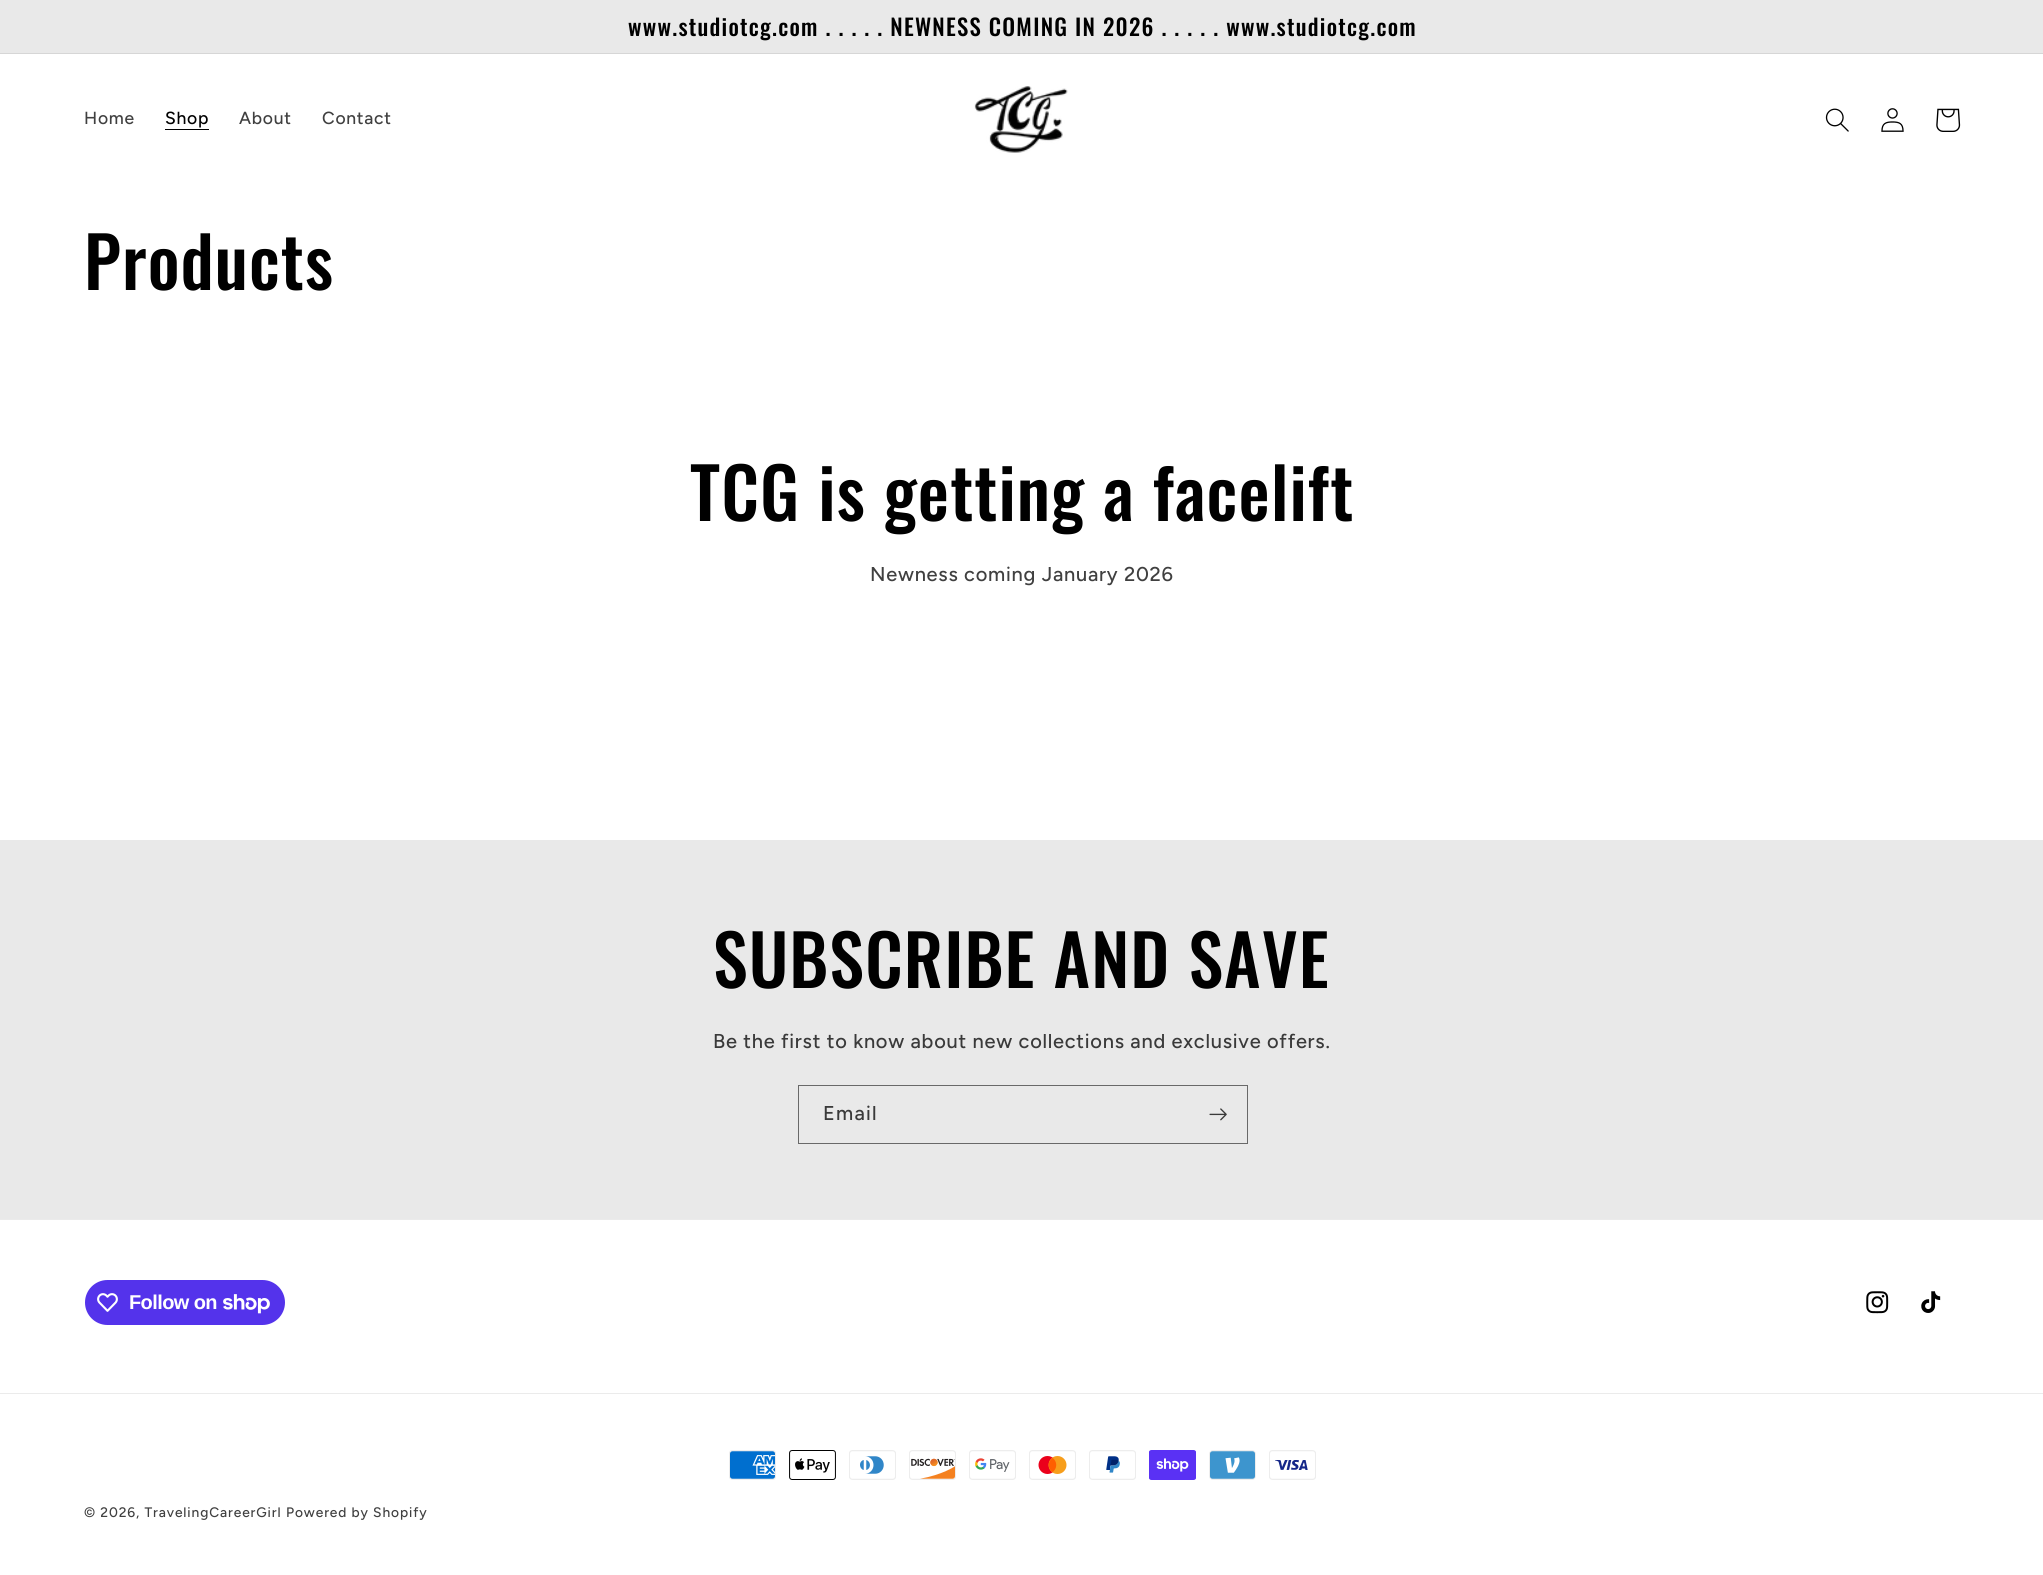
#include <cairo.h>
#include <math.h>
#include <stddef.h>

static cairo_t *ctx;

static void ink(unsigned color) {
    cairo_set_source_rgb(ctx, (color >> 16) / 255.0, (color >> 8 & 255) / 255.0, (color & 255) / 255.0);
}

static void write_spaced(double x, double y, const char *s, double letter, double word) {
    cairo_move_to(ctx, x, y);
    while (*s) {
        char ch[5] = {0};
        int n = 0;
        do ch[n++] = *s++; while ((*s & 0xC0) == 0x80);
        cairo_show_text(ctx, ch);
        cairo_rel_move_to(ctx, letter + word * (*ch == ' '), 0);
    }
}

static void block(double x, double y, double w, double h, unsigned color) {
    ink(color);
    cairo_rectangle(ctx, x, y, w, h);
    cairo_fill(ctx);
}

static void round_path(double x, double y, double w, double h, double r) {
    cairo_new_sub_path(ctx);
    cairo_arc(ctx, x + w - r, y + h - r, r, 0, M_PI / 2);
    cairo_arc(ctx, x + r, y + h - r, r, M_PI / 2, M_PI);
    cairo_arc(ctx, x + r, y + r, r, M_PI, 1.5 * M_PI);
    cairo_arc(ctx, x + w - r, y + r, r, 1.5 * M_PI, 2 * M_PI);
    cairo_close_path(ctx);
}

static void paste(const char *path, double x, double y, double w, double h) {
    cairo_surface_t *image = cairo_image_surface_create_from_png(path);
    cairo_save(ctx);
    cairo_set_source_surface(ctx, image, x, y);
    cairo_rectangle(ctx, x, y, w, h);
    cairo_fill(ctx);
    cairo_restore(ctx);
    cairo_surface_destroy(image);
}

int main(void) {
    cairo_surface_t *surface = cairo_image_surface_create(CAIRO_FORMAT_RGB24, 2043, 1575);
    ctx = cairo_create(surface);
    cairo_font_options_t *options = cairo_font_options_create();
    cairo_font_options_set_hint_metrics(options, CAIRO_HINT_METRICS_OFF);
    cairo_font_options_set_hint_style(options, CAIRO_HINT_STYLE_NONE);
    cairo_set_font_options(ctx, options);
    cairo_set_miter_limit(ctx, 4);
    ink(0xffffff);
    cairo_paint(ctx);
    block(0, 0, 2043, 53, 0xe9e9e9);
    block(0, 53, 2043, 1, 0xd6d6d6);
    cairo_select_font_face(ctx, "Oswald Medium", CAIRO_FONT_SLANT_NORMAL, CAIRO_FONT_WEIGHT_NORMAL);
    cairo_set_font_size(ctx, 22.75);
    ink(0x000000);
    write_spaced(628, 36, "www.studiotcg.com . . . . . NEWNESS COMING IN 2026 . . . . . www.studiotcg.com", 1.25, 0);
    cairo_select_font_face(ctx, "Figtree Medium", CAIRO_FONT_SLANT_NORMAL, CAIRO_FONT_WEIGHT_NORMAL);
    cairo_set_font_size(ctx, 17.5);
    ink(0x404040);
    write_spaced(84, 124, "Home", 0.75, 0);
    ink(0x000000);
    write_spaced(165, 124, "Shop", 0.75, 0);
    block(165, 129, 44, 1, 0x000000);
    ink(0x404040);
    write_spaced(239, 124, "About", 0.75, 0);
    write_spaced(322, 124, "Contact", 0.75, 0);
    paste("pic1.png", 974, 86, 94, 67);
    paste("pic2.png", 1825, 108, 24, 24);
    paste("pic3.png", 1881, 108, 23, 24);
    paste("pic4.png", 1936, 108, 25, 24);
    cairo_select_font_face(ctx, "Oswald Medium", CAIRO_FONT_SLANT_NORMAL, CAIRO_FONT_WEIGHT_NORMAL);
    cairo_set_font_size(ctx, 70);
    ink(0x000000);
    write_spaced(84, 290, "Products", 1.05, 0);
    write_spaced(690, 521, "TCG is getting a facelift", 1.05, 0);
    cairo_select_font_face(ctx, "Figtree Medium", CAIRO_FONT_SLANT_NORMAL, CAIRO_FONT_WEIGHT_NORMAL);
    cairo_set_font_size(ctx, 20);
    ink(0x404040);
    write_spaced(870, 581, "Newness coming January 2026", 0.75, 0);
    block(0, 840, 2043, 379, 0xe9e9e9);
    cairo_select_font_face(ctx, "Oswald Medium", CAIRO_FONT_SLANT_NORMAL, CAIRO_FONT_WEIGHT_NORMAL);
    cairo_set_font_size(ctx, 70);
    ink(0x000000);
    write_spaced(713, 988, "SUBSCRIBE AND SAVE", 1.05, 0);
    cairo_select_font_face(ctx, "Figtree Medium", CAIRO_FONT_SLANT_NORMAL, CAIRO_FONT_WEIGHT_NORMAL);
    cairo_set_font_size(ctx, 20);
    ink(0x3a3a3a);
    write_spaced(713, 1048, "Be the first to know about new collections and exclusive offers.", 0.75, 0);
    cairo_rectangle(ctx, 798.5, 1085.5, 449, 58);
    ink(0x696969);
    cairo_set_line_width(ctx, 1);
    cairo_stroke(ctx);
    ink(0x3a3a3a);
    write_spaced(823, 1120, "Email", 1.25, 0);
    paste("pic5.png", 1209, 1108, 18, 13);
    block(0, 1219, 2043, 1, 0xebebeb);
    ink(0x5433eb);
    round_path(85, 1280, 200, 45, 22.5);
    cairo_fill(ctx);
    paste("pic6.png", 97, 1293, 21, 19);
    cairo_select_font_face(ctx, "Liberation Sans", CAIRO_FONT_SLANT_NORMAL, CAIRO_FONT_WEIGHT_BOLD);
    ink(0xffffff);
    write_spaced(129, 1309, "Follow on", -0.6, 0);
    paste("pic7.png", 223, 1294, 47, 20);
    paste("pic8.png", 1866, 1291, 23, 23);
    paste("pic9.png", 1921, 1291, 20, 22);
    block(0, 1393, 2043, 1, 0xebebeb);
    paste("pic10.png", 729, 1450, 47, 30);
    paste("pic11.png", 789, 1450, 47, 30);
    paste("pic12.png", 849, 1450, 47, 30);
    paste("pic13.png", 909, 1450, 47, 30);
    paste("pic14.png", 969, 1450, 47, 30);
    paste("pic15.png", 1029, 1450, 47, 30);
    paste("pic16.png", 1089, 1450, 47, 30);
    paste("pic17.png", 1149, 1450, 47, 30);
    paste("pic18.png", 1209, 1450, 47, 30);
    paste("pic19.png", 1269, 1450, 47, 30);
    cairo_select_font_face(ctx, "Figtree Medium", CAIRO_FONT_SLANT_NORMAL, CAIRO_FONT_WEIGHT_NORMAL);
    cairo_set_font_size(ctx, 13.75);
    ink(0x404040);
    write_spaced(84, 1517, "© 2026, TravelingCareerGirl", 0.9, 0);
    write_spaced(286, 1517, "Powered by Shopify", 0.9, 0);
    cairo_surface_write_to_png(surface, "screenshot.png");
    cairo_font_options_destroy(options);
    cairo_destroy(ctx);
    cairo_surface_destroy(surface);
    return 0;
}
